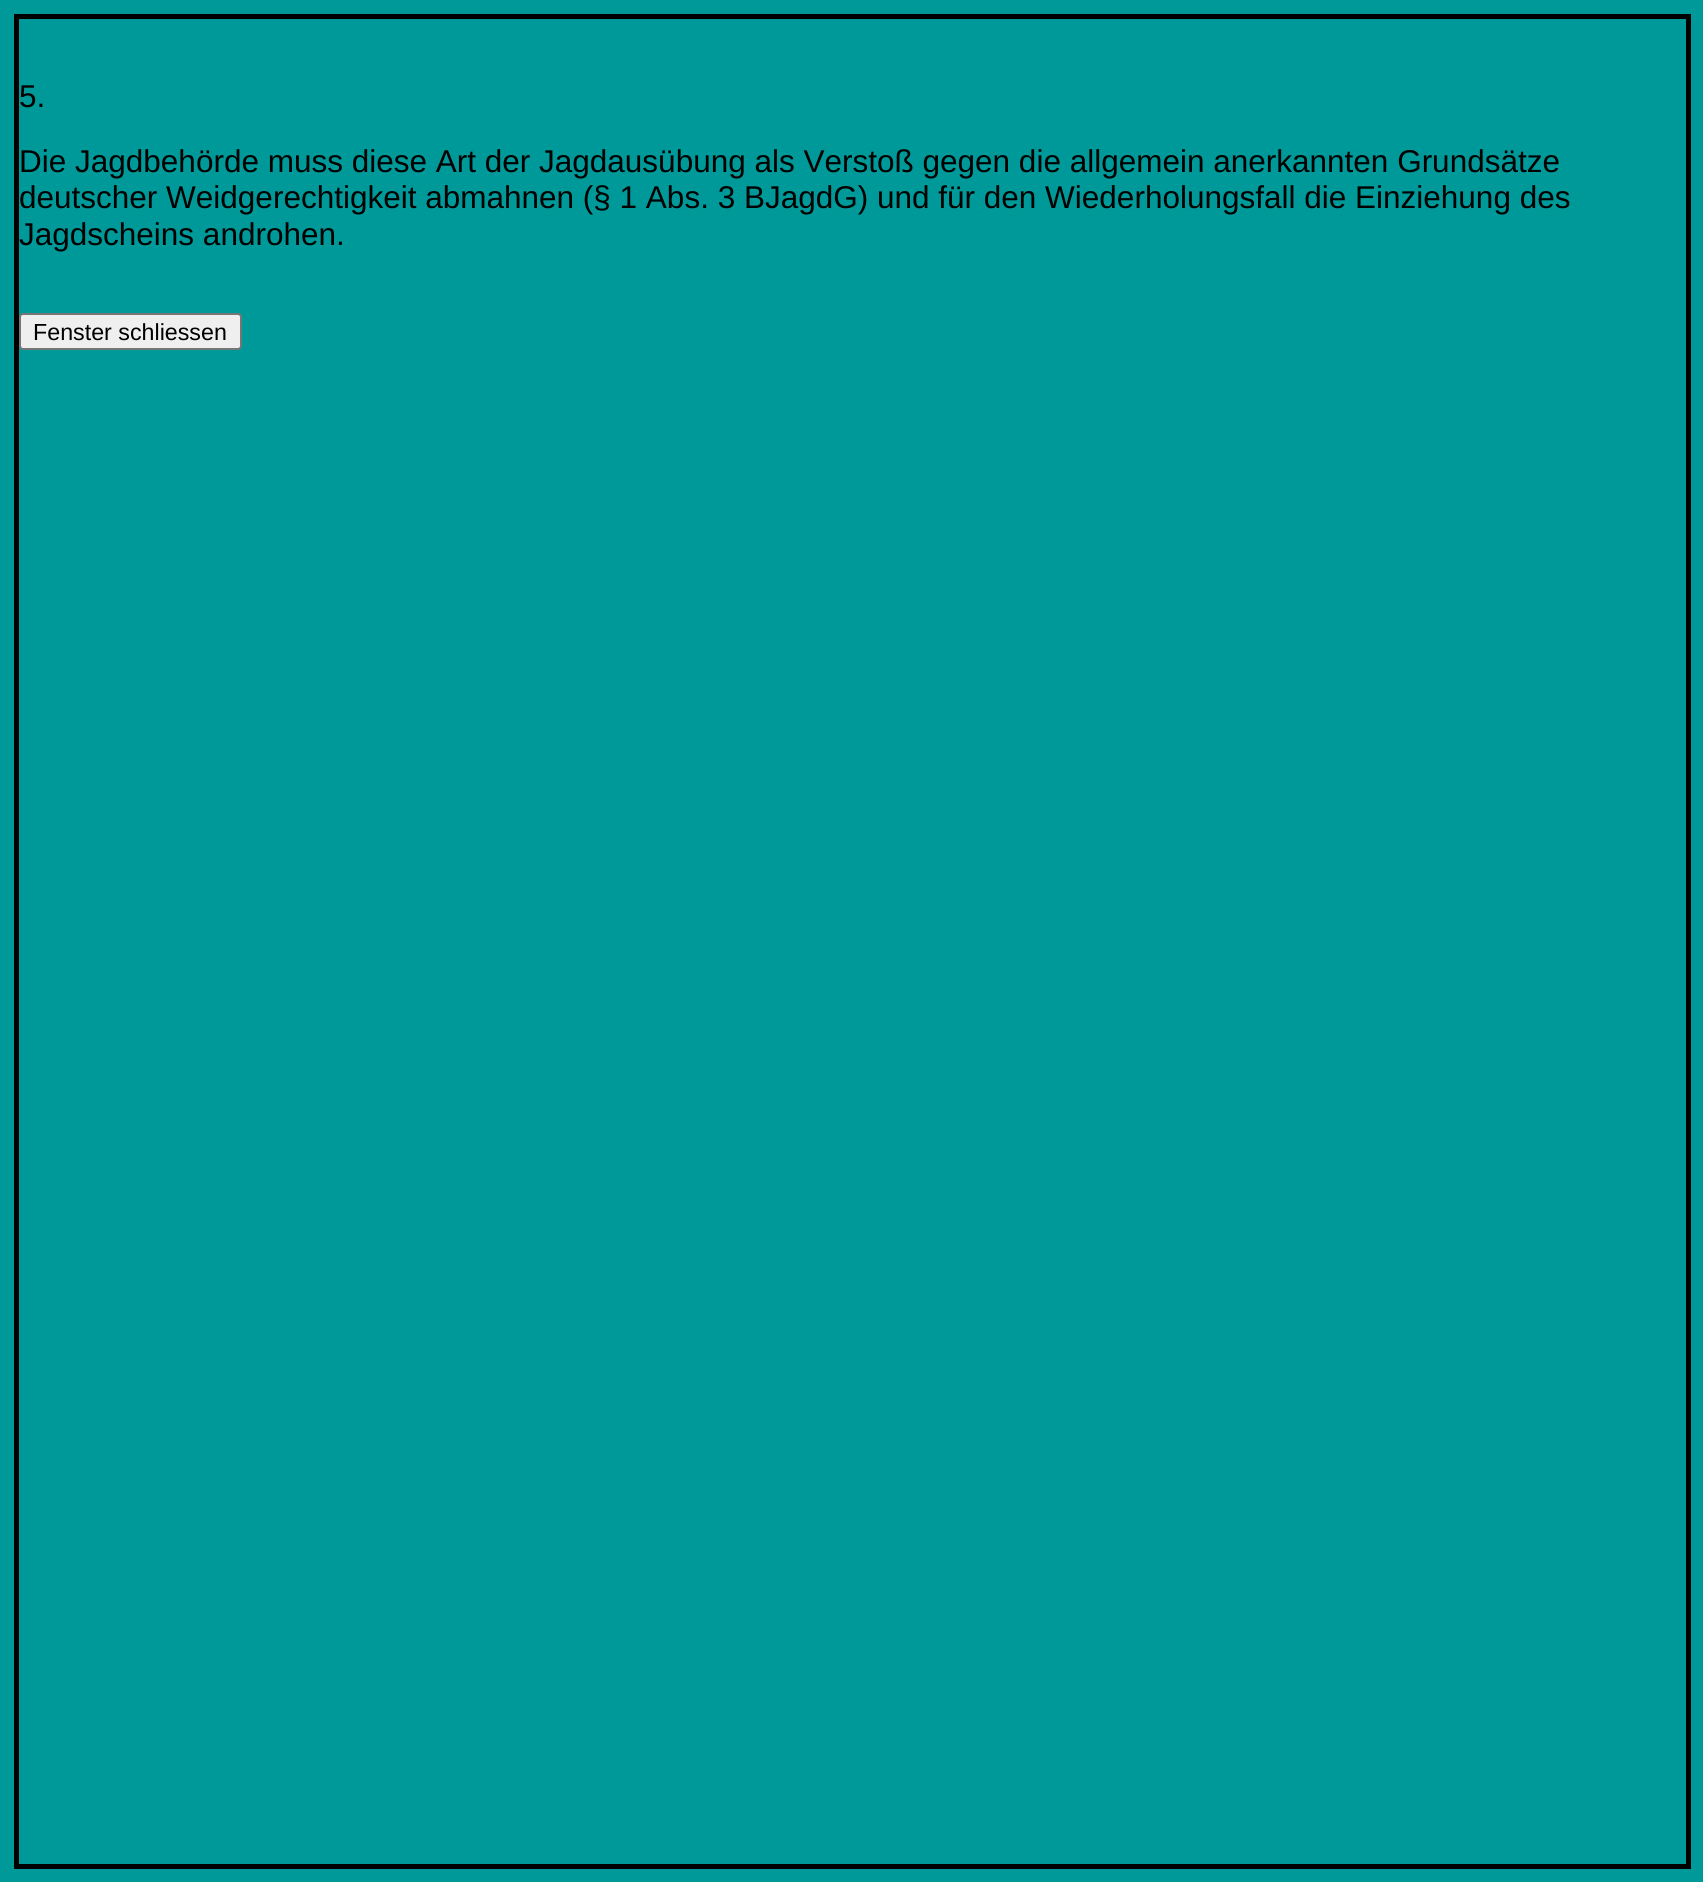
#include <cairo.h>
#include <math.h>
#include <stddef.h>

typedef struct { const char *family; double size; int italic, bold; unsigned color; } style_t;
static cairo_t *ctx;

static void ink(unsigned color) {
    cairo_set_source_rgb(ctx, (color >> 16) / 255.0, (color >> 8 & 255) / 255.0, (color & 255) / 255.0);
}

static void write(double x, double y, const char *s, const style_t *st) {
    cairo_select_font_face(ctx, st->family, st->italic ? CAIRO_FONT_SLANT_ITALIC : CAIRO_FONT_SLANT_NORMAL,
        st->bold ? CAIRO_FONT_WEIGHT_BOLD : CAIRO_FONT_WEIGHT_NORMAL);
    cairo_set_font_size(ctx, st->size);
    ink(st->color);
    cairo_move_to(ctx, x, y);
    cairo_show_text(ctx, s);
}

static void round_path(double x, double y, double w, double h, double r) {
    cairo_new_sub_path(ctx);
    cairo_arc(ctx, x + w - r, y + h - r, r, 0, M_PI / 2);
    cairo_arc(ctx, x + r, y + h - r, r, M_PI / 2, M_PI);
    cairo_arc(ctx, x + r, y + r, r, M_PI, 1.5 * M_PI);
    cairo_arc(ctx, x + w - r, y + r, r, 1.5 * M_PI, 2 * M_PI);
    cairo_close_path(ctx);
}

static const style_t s1 = {"Liberation Sans", 31.5, 0, 0, 0x000000};
static const style_t s2 = {"Liberation Sans", 23.25, 0, 0, 0x000000};

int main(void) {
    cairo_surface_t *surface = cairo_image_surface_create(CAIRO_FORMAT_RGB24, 1703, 1882);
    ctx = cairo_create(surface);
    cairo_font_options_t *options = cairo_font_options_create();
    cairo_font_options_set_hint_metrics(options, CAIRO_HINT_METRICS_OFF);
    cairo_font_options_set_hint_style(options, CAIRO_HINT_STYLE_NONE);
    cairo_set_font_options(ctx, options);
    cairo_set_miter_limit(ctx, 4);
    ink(0x009999);
    cairo_paint(ctx);
    cairo_rectangle(ctx, 16.5, 16.5, 1672, 1850);
    ink(0x000000);
    cairo_set_line_width(ctx, 5);
    cairo_stroke(ctx);
    write(19, 107, "5.", &s1);
    write(19, 172, "Die Jagdbehörde muss diese Art der Jagdausübung als Verstoß gegen die allgemein anerkannten Grundsätze", &s1);
    write(19, 208, "deutscher Weidgerechtigkeit abmahnen (§ 1 Abs. 3 BJagdG) und für den Wiederholungsfall die Einziehung des", &s1);
    write(19, 245, "Jagdscheins androhen.", &s1);
    ink(0xefefef);
    round_path(20, 314, 221, 35, 3);
    cairo_fill_preserve(ctx);
    ink(0x767676);
    cairo_set_line_width(ctx, 2);
    cairo_stroke(ctx);
    write(33, 340, "Fenster schliessen", &s2);
    cairo_surface_write_to_png(surface, "screenshot.png");
    cairo_font_options_destroy(options);
    cairo_destroy(ctx);
    cairo_surface_destroy(surface);
    return 0;
}
